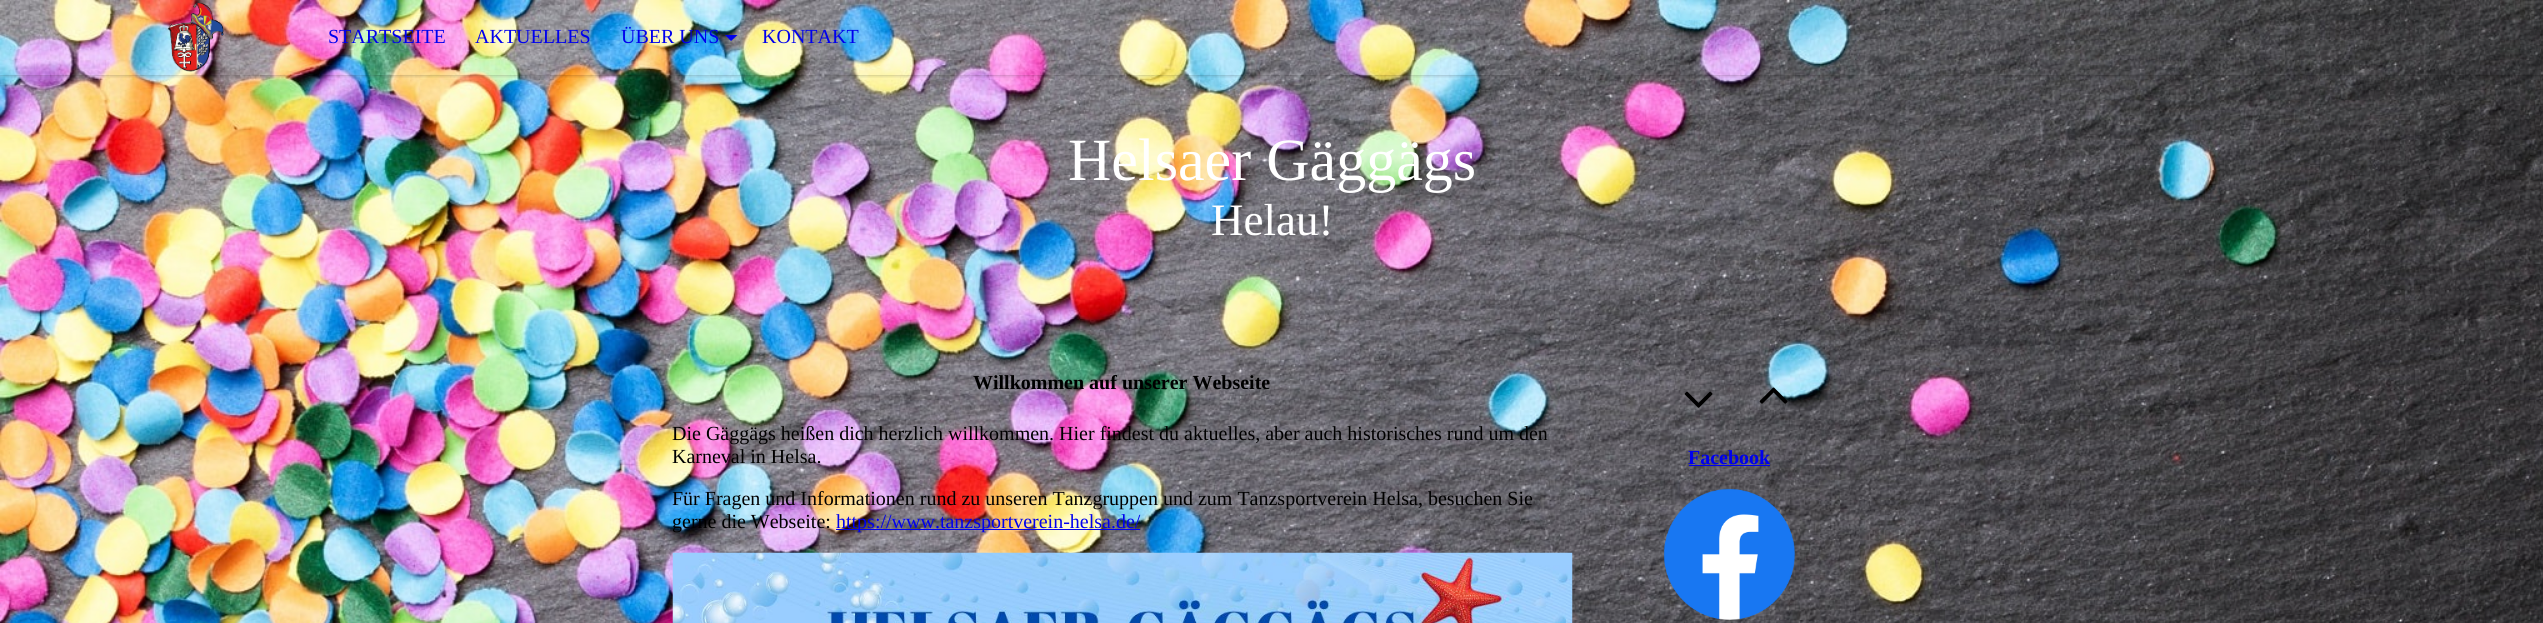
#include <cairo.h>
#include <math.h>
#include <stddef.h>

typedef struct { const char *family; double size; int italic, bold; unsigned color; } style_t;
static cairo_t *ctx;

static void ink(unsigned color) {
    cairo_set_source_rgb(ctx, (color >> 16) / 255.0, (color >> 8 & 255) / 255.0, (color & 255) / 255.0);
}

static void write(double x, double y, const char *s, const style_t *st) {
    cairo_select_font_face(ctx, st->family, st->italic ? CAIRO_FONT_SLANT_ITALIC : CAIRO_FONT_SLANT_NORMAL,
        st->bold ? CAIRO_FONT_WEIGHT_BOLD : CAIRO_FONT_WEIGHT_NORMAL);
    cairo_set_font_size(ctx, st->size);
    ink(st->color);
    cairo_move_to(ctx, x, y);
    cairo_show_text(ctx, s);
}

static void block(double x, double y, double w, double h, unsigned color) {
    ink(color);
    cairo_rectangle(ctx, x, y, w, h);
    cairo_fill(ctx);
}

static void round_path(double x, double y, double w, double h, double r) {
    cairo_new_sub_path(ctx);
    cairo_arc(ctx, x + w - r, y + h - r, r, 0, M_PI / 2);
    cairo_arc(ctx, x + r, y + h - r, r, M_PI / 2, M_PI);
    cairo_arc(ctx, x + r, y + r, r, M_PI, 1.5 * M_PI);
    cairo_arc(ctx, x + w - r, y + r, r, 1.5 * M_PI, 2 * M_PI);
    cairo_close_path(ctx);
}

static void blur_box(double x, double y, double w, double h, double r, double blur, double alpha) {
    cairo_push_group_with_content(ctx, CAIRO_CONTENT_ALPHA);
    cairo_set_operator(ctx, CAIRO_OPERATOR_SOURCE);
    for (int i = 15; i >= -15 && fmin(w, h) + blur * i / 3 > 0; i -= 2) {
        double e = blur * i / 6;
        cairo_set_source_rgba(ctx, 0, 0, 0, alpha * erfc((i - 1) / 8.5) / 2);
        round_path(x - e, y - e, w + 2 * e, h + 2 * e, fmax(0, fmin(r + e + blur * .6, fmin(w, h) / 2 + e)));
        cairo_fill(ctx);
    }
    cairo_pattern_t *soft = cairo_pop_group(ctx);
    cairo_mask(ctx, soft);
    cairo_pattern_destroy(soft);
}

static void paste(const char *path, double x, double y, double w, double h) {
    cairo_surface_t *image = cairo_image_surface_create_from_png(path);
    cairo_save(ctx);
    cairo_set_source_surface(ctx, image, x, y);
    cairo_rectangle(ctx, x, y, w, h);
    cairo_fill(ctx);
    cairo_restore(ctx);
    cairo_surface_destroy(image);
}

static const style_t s1 = {"Liberation Serif", 20, 0, 0, 0x0000ee};
static const style_t s2 = {"Liberation Serif", 60, 0, 0, 0xffffff};
static const style_t s3 = {"Liberation Serif", 45, 0, 0, 0xffffff};
static const style_t s4 = {"Liberation Serif", 20, 0, 1, 0x000000};
static const style_t s5 = {"Liberation Serif", 20, 0, 0, 0x000000};
static const style_t s6 = {"Liberation Serif", 20, 0, 1, 0x0000ee};

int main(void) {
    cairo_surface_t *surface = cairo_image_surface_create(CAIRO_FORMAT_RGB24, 2543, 623);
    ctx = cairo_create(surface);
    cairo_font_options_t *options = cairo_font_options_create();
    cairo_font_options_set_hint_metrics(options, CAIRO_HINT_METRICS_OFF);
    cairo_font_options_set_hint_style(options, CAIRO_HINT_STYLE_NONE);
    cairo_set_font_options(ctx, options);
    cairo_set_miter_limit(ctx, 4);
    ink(0xffffff);
    cairo_paint(ctx);
    paste("pic1.png", 0, 0, 2543, 623);
    cairo_save(ctx);
    cairo_rectangle(ctx, 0, 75, 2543, 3);
    cairo_clip(ctx);
    ink(0x000000);
    blur_box(0, 0, 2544, 75, 0, 2, 0.3);
    cairo_restore(ctx);
    paste("pic2.png", 167, 2, 57, 70);
    write(328, 43, "STARTSEITE", &s1);
    write(475, 43, "AKTUELLES", &s1);
    write(621, 43, "ÜBER UNS", &s1);
    cairo_new_path(ctx);
    cairo_move_to(ctx, 725, 35);
    cairo_line_to(ctx, 737.5, 35);
    cairo_line_to(ctx, 731, 41);
    cairo_close_path(ctx);
    cairo_fill(ctx);
    write(762, 43, "KONTAKT", &s1);
    write(1068, 180, "Helsaer Gäggägs", &s2);
    write(1211, 235, "Helau!", &s3);
    write(973, 389, "Willkommen auf unserer Webseite", &s4);
    write(672, 440, "Die Gäggägs heißen dich herzlich willkommen. Hier findest du aktuelles, aber auch historisches rund um den", &s5);
    write(672, 463, "Karneval in Helsa.", &s5);
    write(672, 505, "Für Fragen und Informationen rund zu unseren Tanzgruppen und zum Tanzsportverein Helsa, besuchen Sie", &s5);
    write(672, 528, "gerne die Webseite:", &s5);
    block(836, 529, 304, 1, 0x0000ee);
    write(836, 528, "https://www.tanzsportverein-helsa.de/", &s1);
    paste("pic3.png", 672, 552, 901, 71);
    paste("pic4.png", 1684, 391, 29, 17);
    paste("pic5.png", 1759, 387, 29, 17);
    write(1688, 464, "Facebook", &s6);
    block(1689, 465, 81, 1, 0x0000ee);
    paste("pic6.png", 1663, 488, 132, 132);
    cairo_surface_write_to_png(surface, "screenshot.png");
    cairo_font_options_destroy(options);
    cairo_destroy(ctx);
    cairo_surface_destroy(surface);
    return 0;
}
